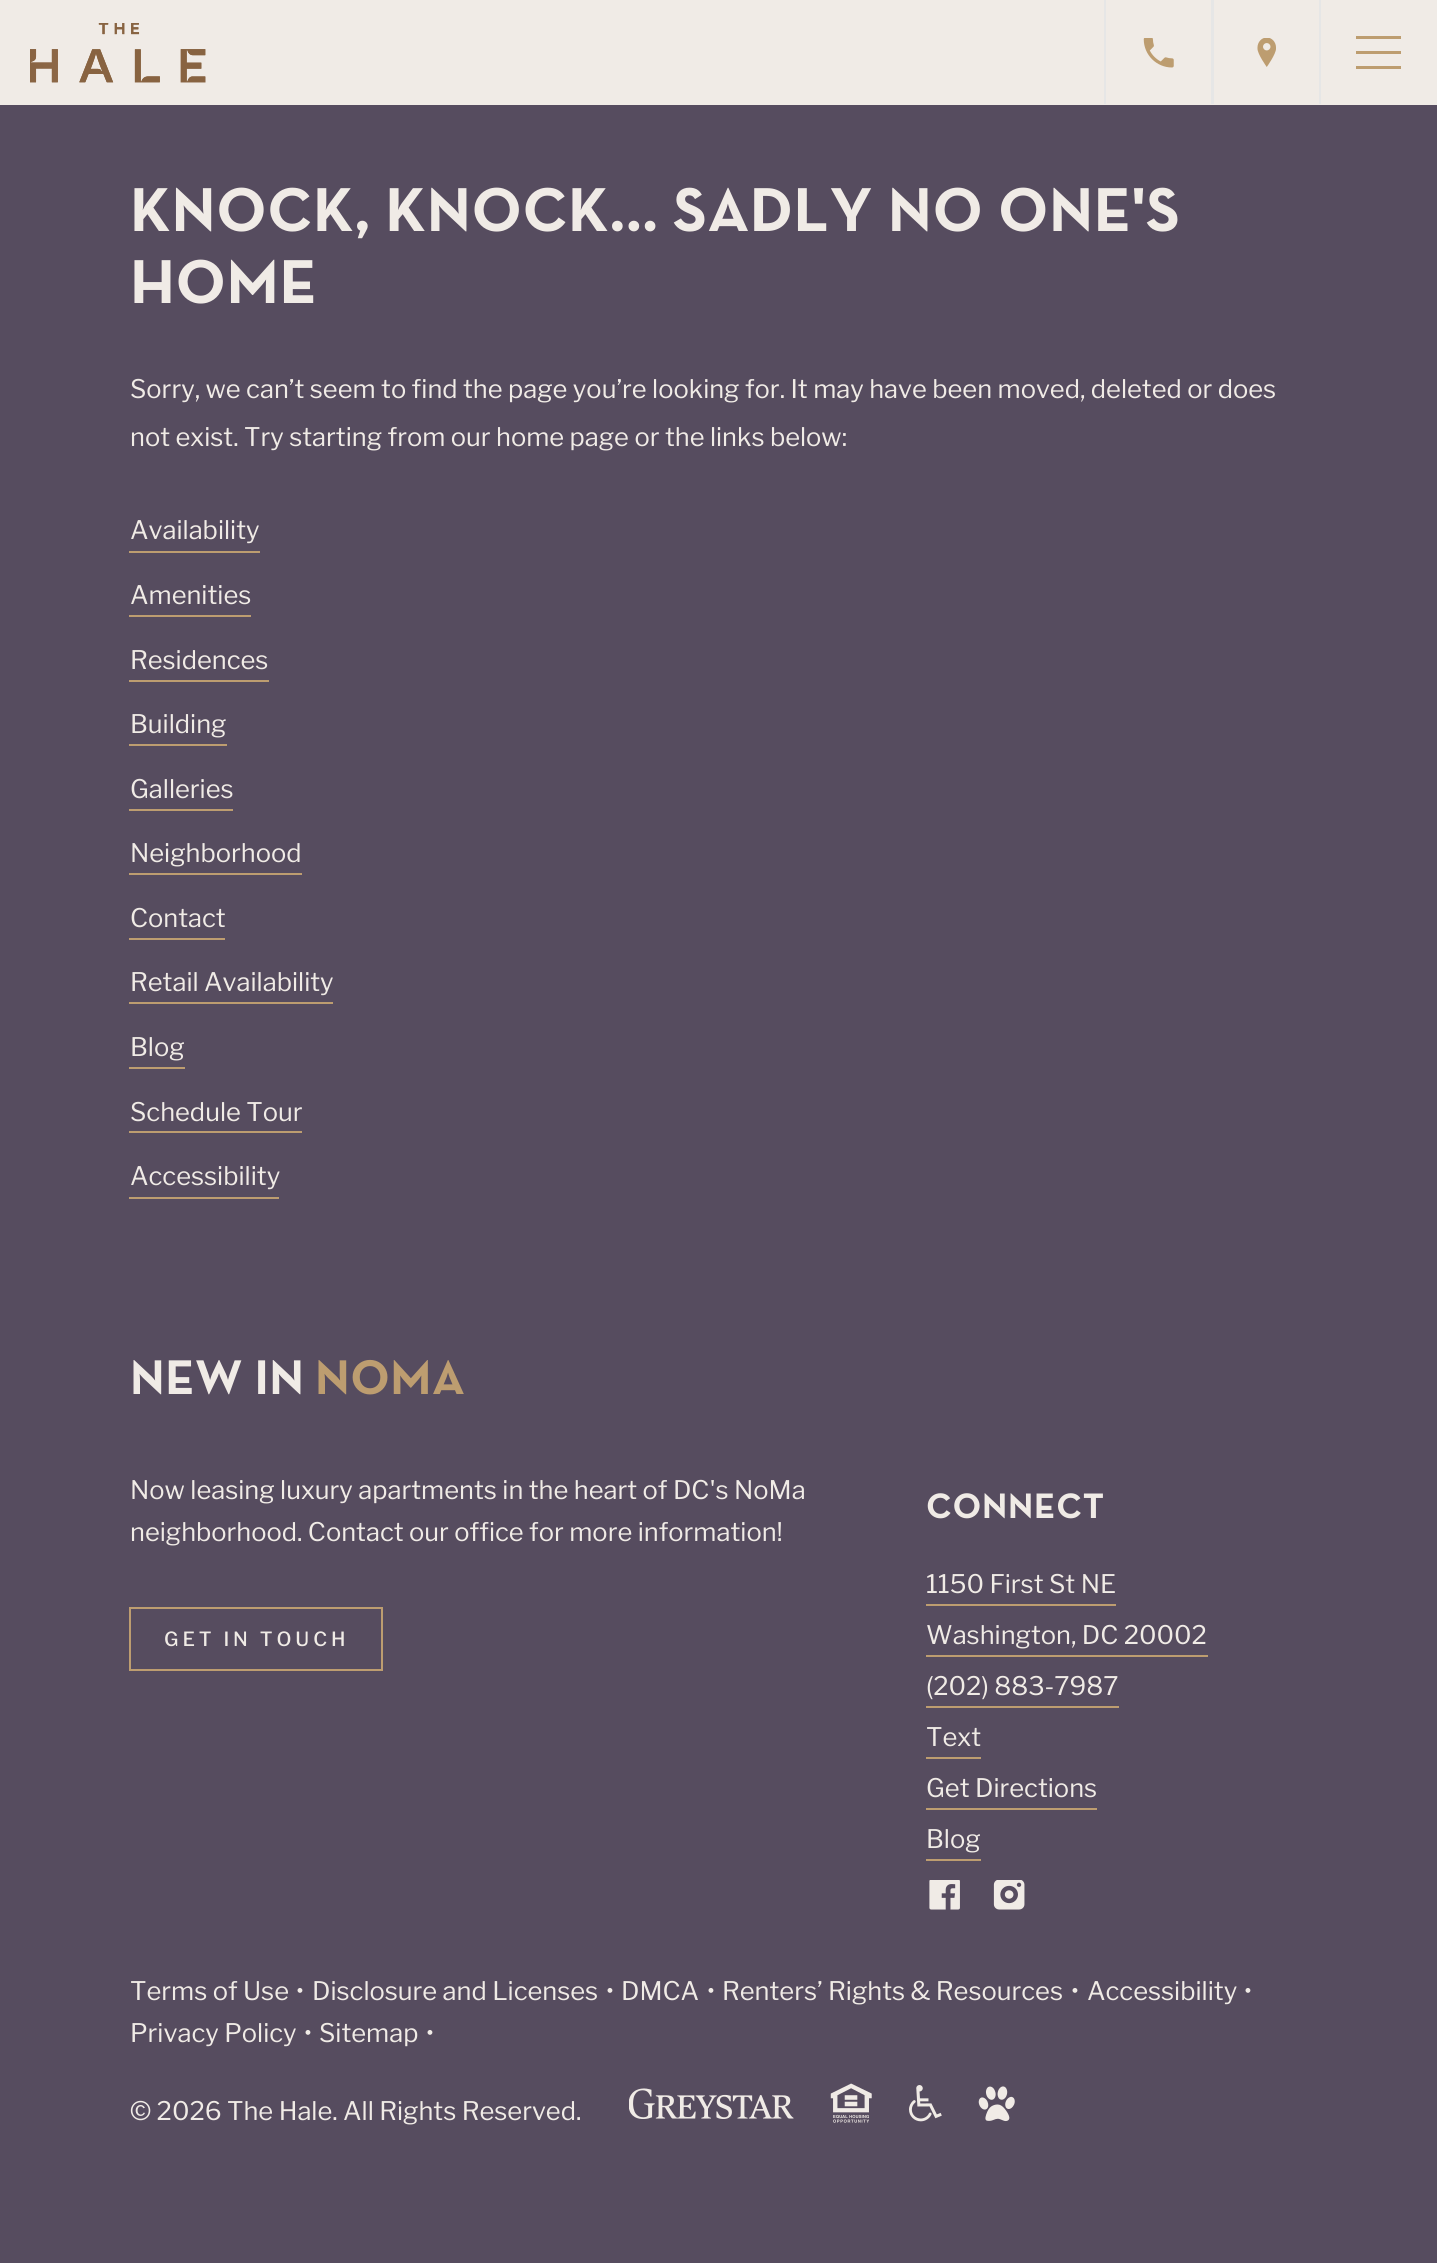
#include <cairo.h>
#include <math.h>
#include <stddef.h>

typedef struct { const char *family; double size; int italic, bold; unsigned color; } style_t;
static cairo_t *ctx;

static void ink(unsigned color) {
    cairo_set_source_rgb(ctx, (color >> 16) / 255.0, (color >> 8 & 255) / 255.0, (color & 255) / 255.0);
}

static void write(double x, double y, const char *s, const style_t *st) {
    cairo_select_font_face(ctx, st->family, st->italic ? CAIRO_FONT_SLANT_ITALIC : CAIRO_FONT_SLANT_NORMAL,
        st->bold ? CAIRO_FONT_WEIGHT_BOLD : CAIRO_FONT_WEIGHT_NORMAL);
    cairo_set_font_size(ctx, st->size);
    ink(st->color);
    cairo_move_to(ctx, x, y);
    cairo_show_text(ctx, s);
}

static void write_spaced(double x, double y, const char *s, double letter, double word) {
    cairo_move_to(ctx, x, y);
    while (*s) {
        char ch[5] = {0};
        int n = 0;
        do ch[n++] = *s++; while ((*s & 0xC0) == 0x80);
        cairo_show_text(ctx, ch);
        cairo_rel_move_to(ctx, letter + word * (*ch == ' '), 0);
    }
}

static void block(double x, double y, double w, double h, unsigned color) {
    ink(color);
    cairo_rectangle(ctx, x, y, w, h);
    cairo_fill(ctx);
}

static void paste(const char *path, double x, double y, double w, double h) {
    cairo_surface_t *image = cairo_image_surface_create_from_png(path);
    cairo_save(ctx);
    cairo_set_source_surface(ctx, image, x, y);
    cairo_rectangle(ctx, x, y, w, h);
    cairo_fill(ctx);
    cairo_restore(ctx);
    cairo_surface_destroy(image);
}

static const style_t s1 = {"Libre Franklin", 25.5, 0, 0, 0xf0ebe6};

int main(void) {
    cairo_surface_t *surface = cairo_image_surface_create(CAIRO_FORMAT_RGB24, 1437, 2263);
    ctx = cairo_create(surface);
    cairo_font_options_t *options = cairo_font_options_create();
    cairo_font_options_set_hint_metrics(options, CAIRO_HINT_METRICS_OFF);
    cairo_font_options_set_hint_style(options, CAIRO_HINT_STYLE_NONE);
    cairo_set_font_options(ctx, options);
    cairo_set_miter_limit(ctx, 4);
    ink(0x564c5f);
    cairo_paint(ctx);
    block(0, 0, 1437, 105, 0xf0ebe6);
    block(1104, 0, 2, 104, 0xe6e6e6);
    paste("pic1.png", 1143, 38, 31, 30);
    block(1319, 0, 2, 104, 0xe6e6e6);
    block(1211, 0, 3, 104, 0xe6e6e6);
    paste("pic2.png", 1257, 38, 19, 29);
    block(1356, 51, 45, 3, 0xbd9d70);
    block(1356, 36, 45, 3, 0xbd9d70);
    block(1356, 66, 45, 3, 0xbd9d70);
    paste("pic3.png", 30, 23, 176, 60);
    cairo_select_font_face(ctx, "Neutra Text", CAIRO_FONT_SLANT_NORMAL, CAIRO_FONT_WEIGHT_BOLD);
    cairo_set_font_size(ctx, 63);
    ink(0xf0ebe6);
    write_spaced(130, 231, "KNOCK, KNOCK... SADLY NO ONE'S", 0.6, 0);
    write_spaced(130, 303, "HOME", 0.6, 0);
    write(130, 398, "Sorry, we can’t seem to find the page you’re looking for. It may have been moved, deleted or does", &s1);
    write(130, 446, "not exist. Try starting from our home page or the links below:", &s1);
    write(130, 539, "Availability", &s1);
    block(129, 551, 131, 2, 0xbd9d70);
    write(130, 604, "Amenities", &s1);
    block(129, 615, 122, 2, 0xbd9d70);
    write(130, 669, "Residences", &s1);
    block(129, 680, 140, 2, 0xbd9d70);
    write(130, 733, "Building", &s1);
    block(129, 744, 98, 2, 0xbd9d70);
    write(130, 798, "Galleries", &s1);
    block(129, 809, 104, 2, 0xbd9d70);
    write(130, 862, "Neighborhood", &s1);
    block(129, 873, 173, 2, 0xbd9d70);
    write(130, 927, "Contact", &s1);
    block(129, 938, 96, 2, 0xbd9d70);
    write(130, 991, "Retail Availability", &s1);
    block(129, 1002, 204, 2, 0xbd9d70);
    write(130, 1056, "Blog", &s1);
    block(129, 1067, 56, 2, 0xbd9d70);
    write(130, 1121, "Schedule Tour", &s1);
    block(129, 1131, 173, 2, 0xbd9d70);
    write(130, 1185, "Accessibility", &s1);
    block(129, 1197, 150, 2, 0xbd9d70);
    cairo_select_font_face(ctx, "Neutra Text", CAIRO_FONT_SLANT_NORMAL, CAIRO_FONT_WEIGHT_BOLD);
    cairo_set_font_size(ctx, 49.5);
    ink(0xf0ebe6);
    write_spaced(130, 1394, "NEW IN", 0.5, 0);
    ink(0xbd9d70);
    write_spaced(315, 1394, "NOMA", 0.5, 0);
    write(130, 1499, "Now leasing luxury apartments in the heart of DC's NoMa", &s1);
    write(130, 1541, "neighborhood. Contact our office for more information!", &s1);
    cairo_rectangle(ctx, 130, 1608, 252, 62);
    ink(0xbd9d70);
    cairo_stroke(ctx);
    cairo_select_font_face(ctx, "Libre Franklin Medium", CAIRO_FONT_SLANT_NORMAL, CAIRO_FONT_WEIGHT_NORMAL);
    cairo_set_font_size(ctx, 19.5);
    ink(0xf0ebe6);
    write_spaced(164, 1646, "GET IN TOUCH", 3.9, 0);
    cairo_select_font_face(ctx, "Neutra Text", CAIRO_FONT_SLANT_NORMAL, CAIRO_FONT_WEIGHT_BOLD);
    cairo_set_font_size(ctx, 36);
    write_spaced(926, 1518, "CONNECT", 0.75, 0);
    write(926, 1593, "1150 First St NE", &s1);
    block(926, 1604, 190, 2, 0xbd9d70);
    write(926, 1644, "Washington, DC 20002", &s1);
    block(926, 1655, 282, 2, 0xbd9d70);
    write(926, 1695, "(202) 883-7987", &s1);
    block(926, 1706, 193, 2, 0xbd9d70);
    write(926, 1746, "Text", &s1);
    block(926, 1757, 55, 2, 0xbd9d70);
    write(926, 1797, "Get Directions", &s1);
    block(926, 1808, 171, 2, 0xbd9d70);
    write(926, 1848, "Blog", &s1);
    block(926, 1859, 55, 2, 0xbd9d70);
    paste("pic4.png", 929, 1880, 31, 30);
    paste("pic5.png", 993, 1880, 32, 30);
    write(130, 2000, "Terms of Use", &s1);
    write(296, 2000, "•", &s1);
    write(312, 2000, "Disclosure and Licenses", &s1);
    write(606, 2000, "•", &s1);
    write(621, 2000, "DMCA", &s1);
    write(707, 2000, "•", &s1);
    write(722, 2000, "Renters’ Rights & Resources", &s1);
    write(1071, 2000, "•", &s1);
    write(1087, 2000, "Accessibility", &s1);
    write(1244, 2000, "•", &s1);
    write(130, 2042, "Privacy Policy", &s1);
    write(304, 2042, "•", &s1);
    write(319, 2042, "Sitemap", &s1);
    write(426, 2042, "•", &s1);
    write(130, 2120, "© 2026 The Hale. All Rights Reserved.", &s1);
    paste("pic6.png", 629, 2088, 165, 31);
    paste("pic7.png", 830, 2083, 42, 40);
    paste("pic8.png", 909, 2085, 33, 37);
    paste("pic9.png", 978, 2086, 37, 36);
    cairo_surface_write_to_png(surface, "screenshot.png");
    cairo_font_options_destroy(options);
    cairo_destroy(ctx);
    cairo_surface_destroy(surface);
    return 0;
}
